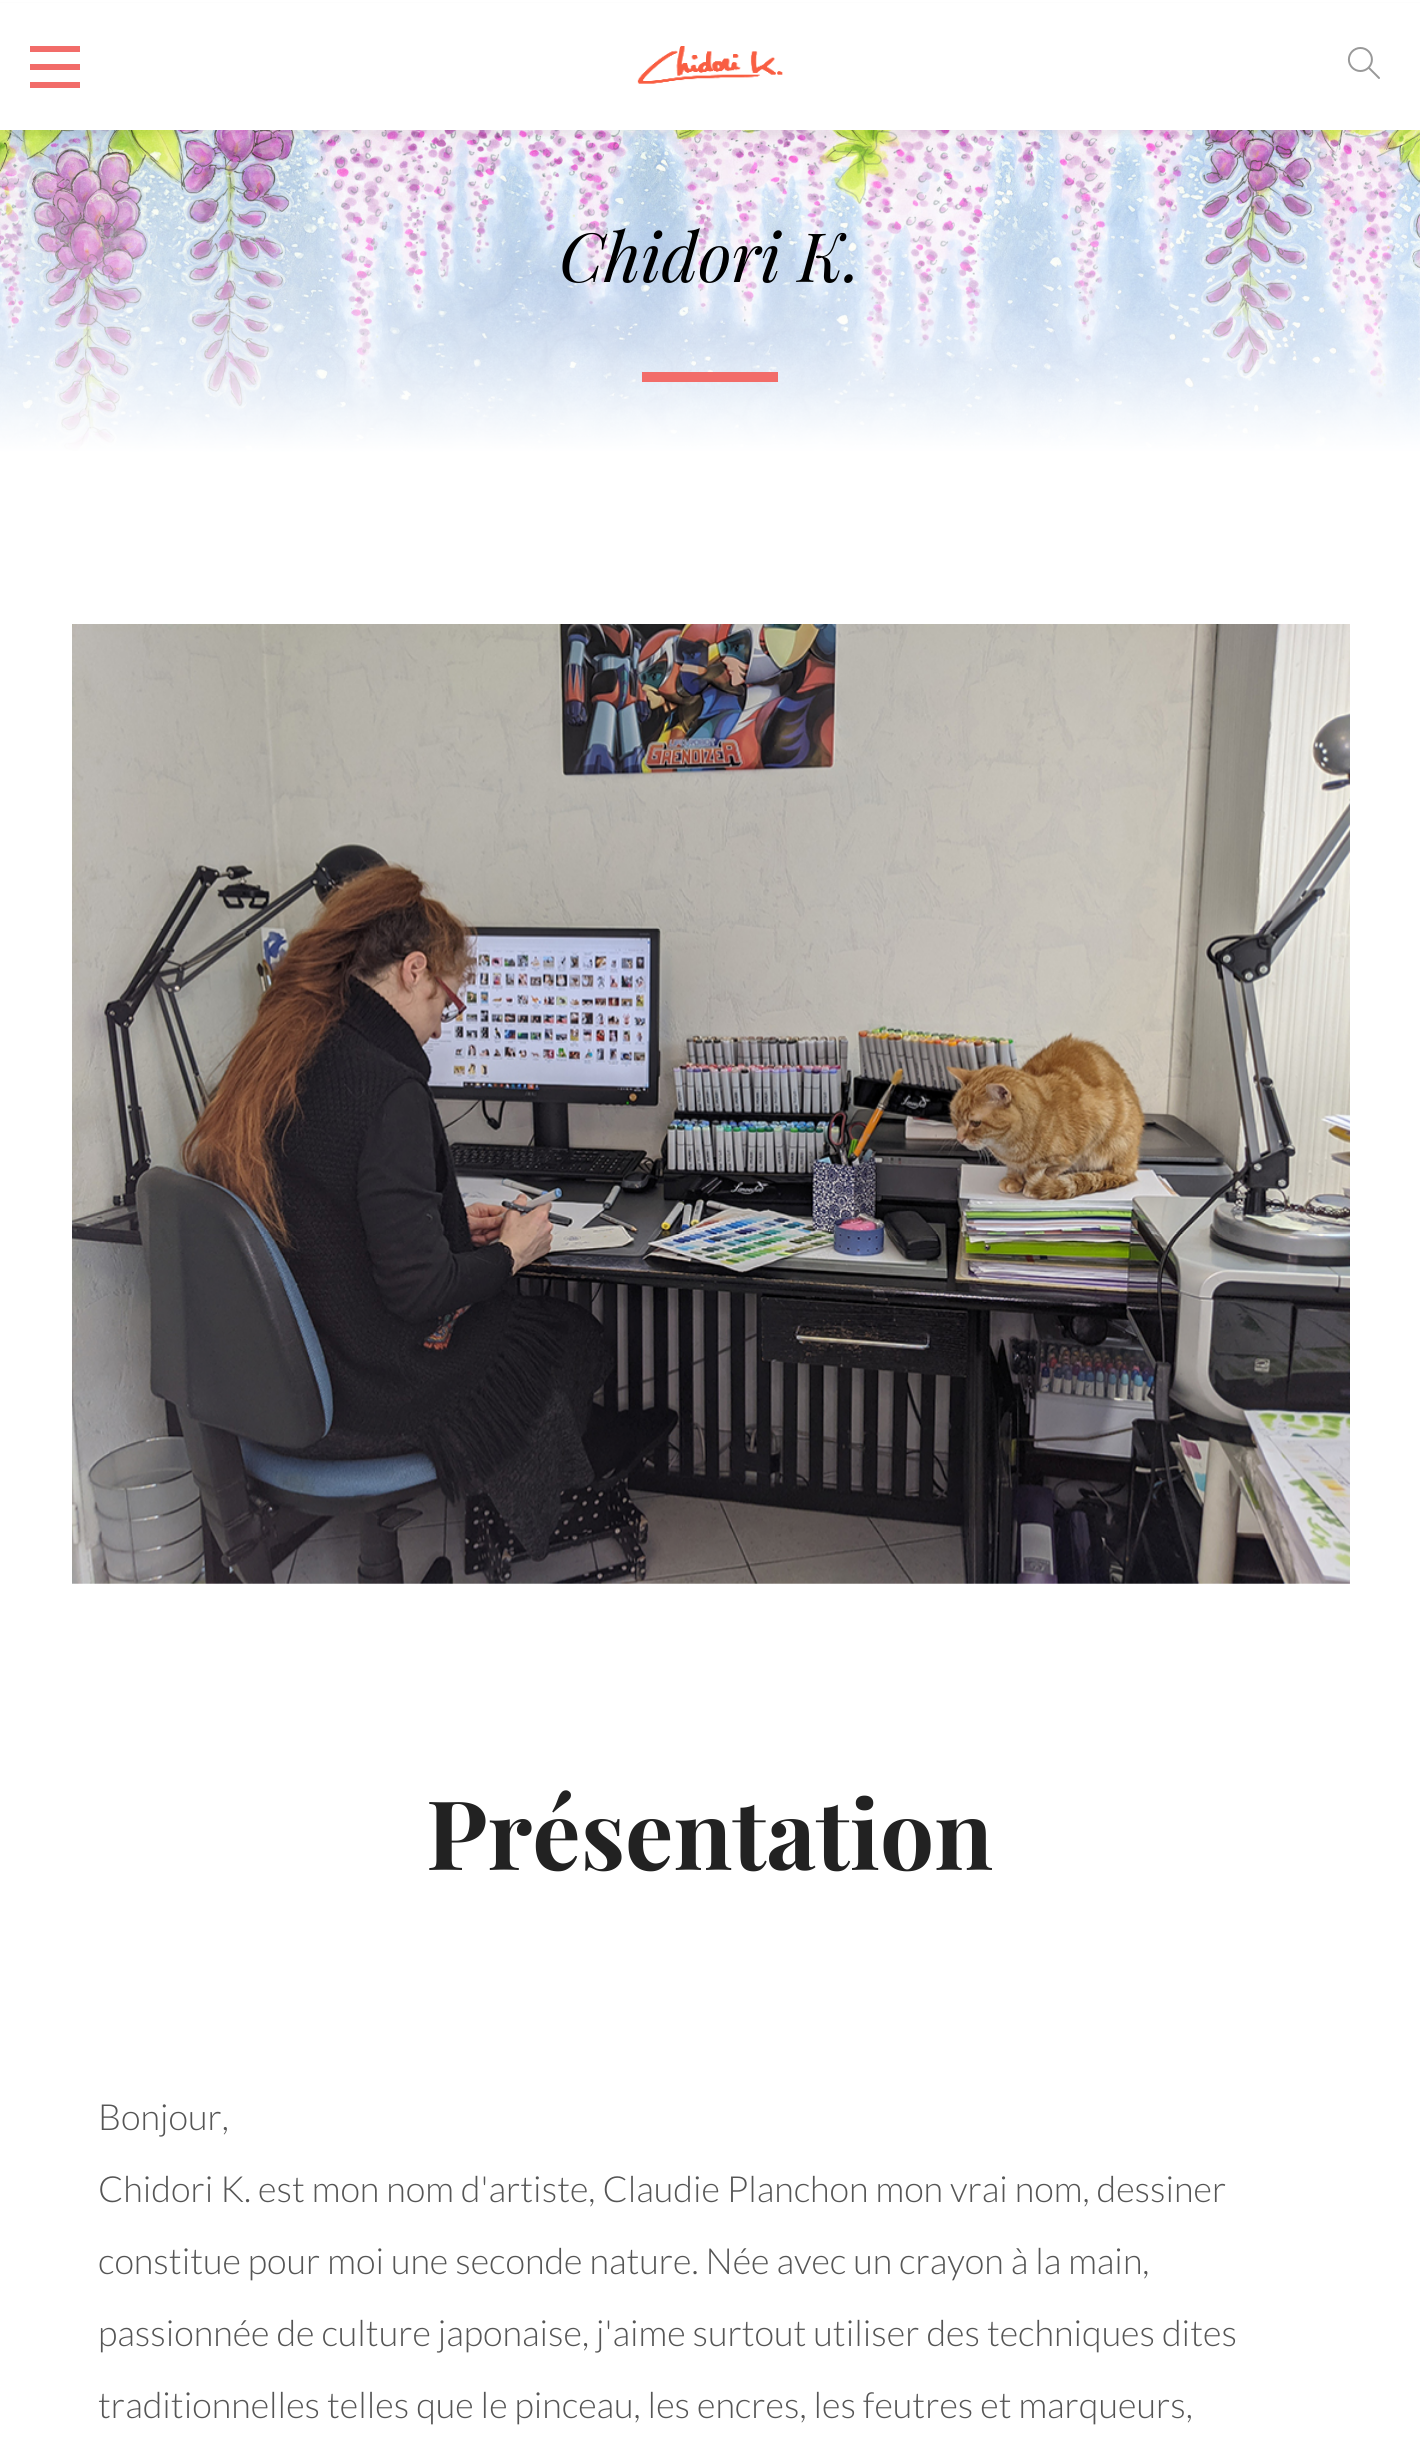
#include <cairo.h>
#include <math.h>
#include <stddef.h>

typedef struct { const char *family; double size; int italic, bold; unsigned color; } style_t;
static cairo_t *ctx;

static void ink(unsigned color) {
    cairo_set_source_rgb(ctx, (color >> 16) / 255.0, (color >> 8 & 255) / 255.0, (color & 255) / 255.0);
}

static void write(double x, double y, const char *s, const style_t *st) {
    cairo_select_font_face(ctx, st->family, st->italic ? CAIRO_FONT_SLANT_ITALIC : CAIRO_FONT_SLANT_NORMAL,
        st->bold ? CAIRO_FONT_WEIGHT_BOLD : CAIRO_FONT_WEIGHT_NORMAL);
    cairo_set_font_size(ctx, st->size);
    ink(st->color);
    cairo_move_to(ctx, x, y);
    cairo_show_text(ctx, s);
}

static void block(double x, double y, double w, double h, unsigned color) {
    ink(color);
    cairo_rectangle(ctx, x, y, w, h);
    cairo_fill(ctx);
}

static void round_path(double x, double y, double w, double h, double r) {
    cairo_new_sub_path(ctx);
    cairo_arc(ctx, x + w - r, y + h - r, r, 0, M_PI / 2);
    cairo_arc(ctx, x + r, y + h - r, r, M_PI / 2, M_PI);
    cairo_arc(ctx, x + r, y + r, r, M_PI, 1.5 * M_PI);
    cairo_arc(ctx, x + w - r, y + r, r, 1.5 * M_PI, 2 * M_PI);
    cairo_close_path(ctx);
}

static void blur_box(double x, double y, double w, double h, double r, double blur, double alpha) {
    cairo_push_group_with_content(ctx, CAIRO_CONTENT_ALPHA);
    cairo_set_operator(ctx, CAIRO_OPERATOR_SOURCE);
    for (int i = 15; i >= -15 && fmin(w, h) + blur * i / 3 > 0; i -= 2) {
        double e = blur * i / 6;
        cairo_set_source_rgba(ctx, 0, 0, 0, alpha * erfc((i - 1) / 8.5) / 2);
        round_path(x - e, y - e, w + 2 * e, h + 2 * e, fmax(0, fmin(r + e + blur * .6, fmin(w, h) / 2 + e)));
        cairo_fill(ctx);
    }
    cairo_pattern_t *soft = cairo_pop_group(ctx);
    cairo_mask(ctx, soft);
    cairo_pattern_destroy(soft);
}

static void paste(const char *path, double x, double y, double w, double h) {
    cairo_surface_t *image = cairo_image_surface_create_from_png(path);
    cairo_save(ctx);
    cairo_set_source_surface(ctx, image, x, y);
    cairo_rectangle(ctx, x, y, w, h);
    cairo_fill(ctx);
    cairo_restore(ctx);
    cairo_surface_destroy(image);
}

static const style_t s1 = {"Playfair Display", 68, 1, 0, 0x000000};
static const style_t s2 = {"Playfair Display", 96, 0, 1, 0x222222};
static const style_t s3 = {"Lato Light", 36, 0, 0, 0x555555};

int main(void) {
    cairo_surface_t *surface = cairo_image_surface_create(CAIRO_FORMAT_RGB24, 1420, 2449);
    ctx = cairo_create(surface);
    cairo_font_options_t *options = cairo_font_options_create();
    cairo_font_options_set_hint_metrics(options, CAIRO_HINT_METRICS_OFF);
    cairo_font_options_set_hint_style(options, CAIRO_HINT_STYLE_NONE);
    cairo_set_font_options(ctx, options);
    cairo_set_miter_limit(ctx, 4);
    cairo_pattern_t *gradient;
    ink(0xffffff);
    cairo_paint(ctx);
    paste("pic3.png", 0, 130, 1420, 322);
    gradient = cairo_pattern_create_linear(710, -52, 710, 454);
    cairo_pattern_add_color_stop_rgba(gradient, 0.3, 1, 1, 1, 0);
    cairo_pattern_add_color_stop_rgba(gradient, 1, 1, 1, 1, 1);
    cairo_set_source(ctx, gradient);
    cairo_pattern_destroy(gradient);
    cairo_rectangle(ctx, 0, 130, 1420, 322);
    cairo_fill(ctx);
    ink(0x000000);
    blur_box(0, 6, 1420, 130, 0, 3, 0.05);
    block(0, 3, 1420, 127, 0xffffff);
    block(30, 64, 50, 6, 0xf26c69);
    block(30, 46, 50, 6, 0xf26c69);
    block(30, 82, 50, 6, 0xf26c69);
    paste("pic1.png", 637, 46, 146, 38);
    paste("pic2.png", 1347, 47, 33, 32);
    write(559, 282, "Chidori K.", &s1);
    block(642, 372, 136, 10, 0xf26c69);
    paste("pic4.png", 72, 624, 1278, 960);
    write(426, 1870, "Présentation", &s2);
    write(98, 2130, "Bonjour,", &s3);
    write(98, 2202, "Chidori K. est mon nom d'artiste, Claudie Planchon mon vrai nom, dessiner", &s3);
    write(98, 2274, "constitue pour moi une seconde nature. Née avec un crayon à la main,", &s3);
    write(98, 2346, "passionnée de culture japonaise, j'aime surtout utiliser des techniques dites", &s3);
    write(98, 2418, "traditionnelles telles que le pinceau, les encres, les feutres et marqueurs,", &s3);
    cairo_surface_write_to_png(surface, "screenshot.png");
    cairo_font_options_destroy(options);
    cairo_destroy(ctx);
    cairo_surface_destroy(surface);
    return 0;
}
